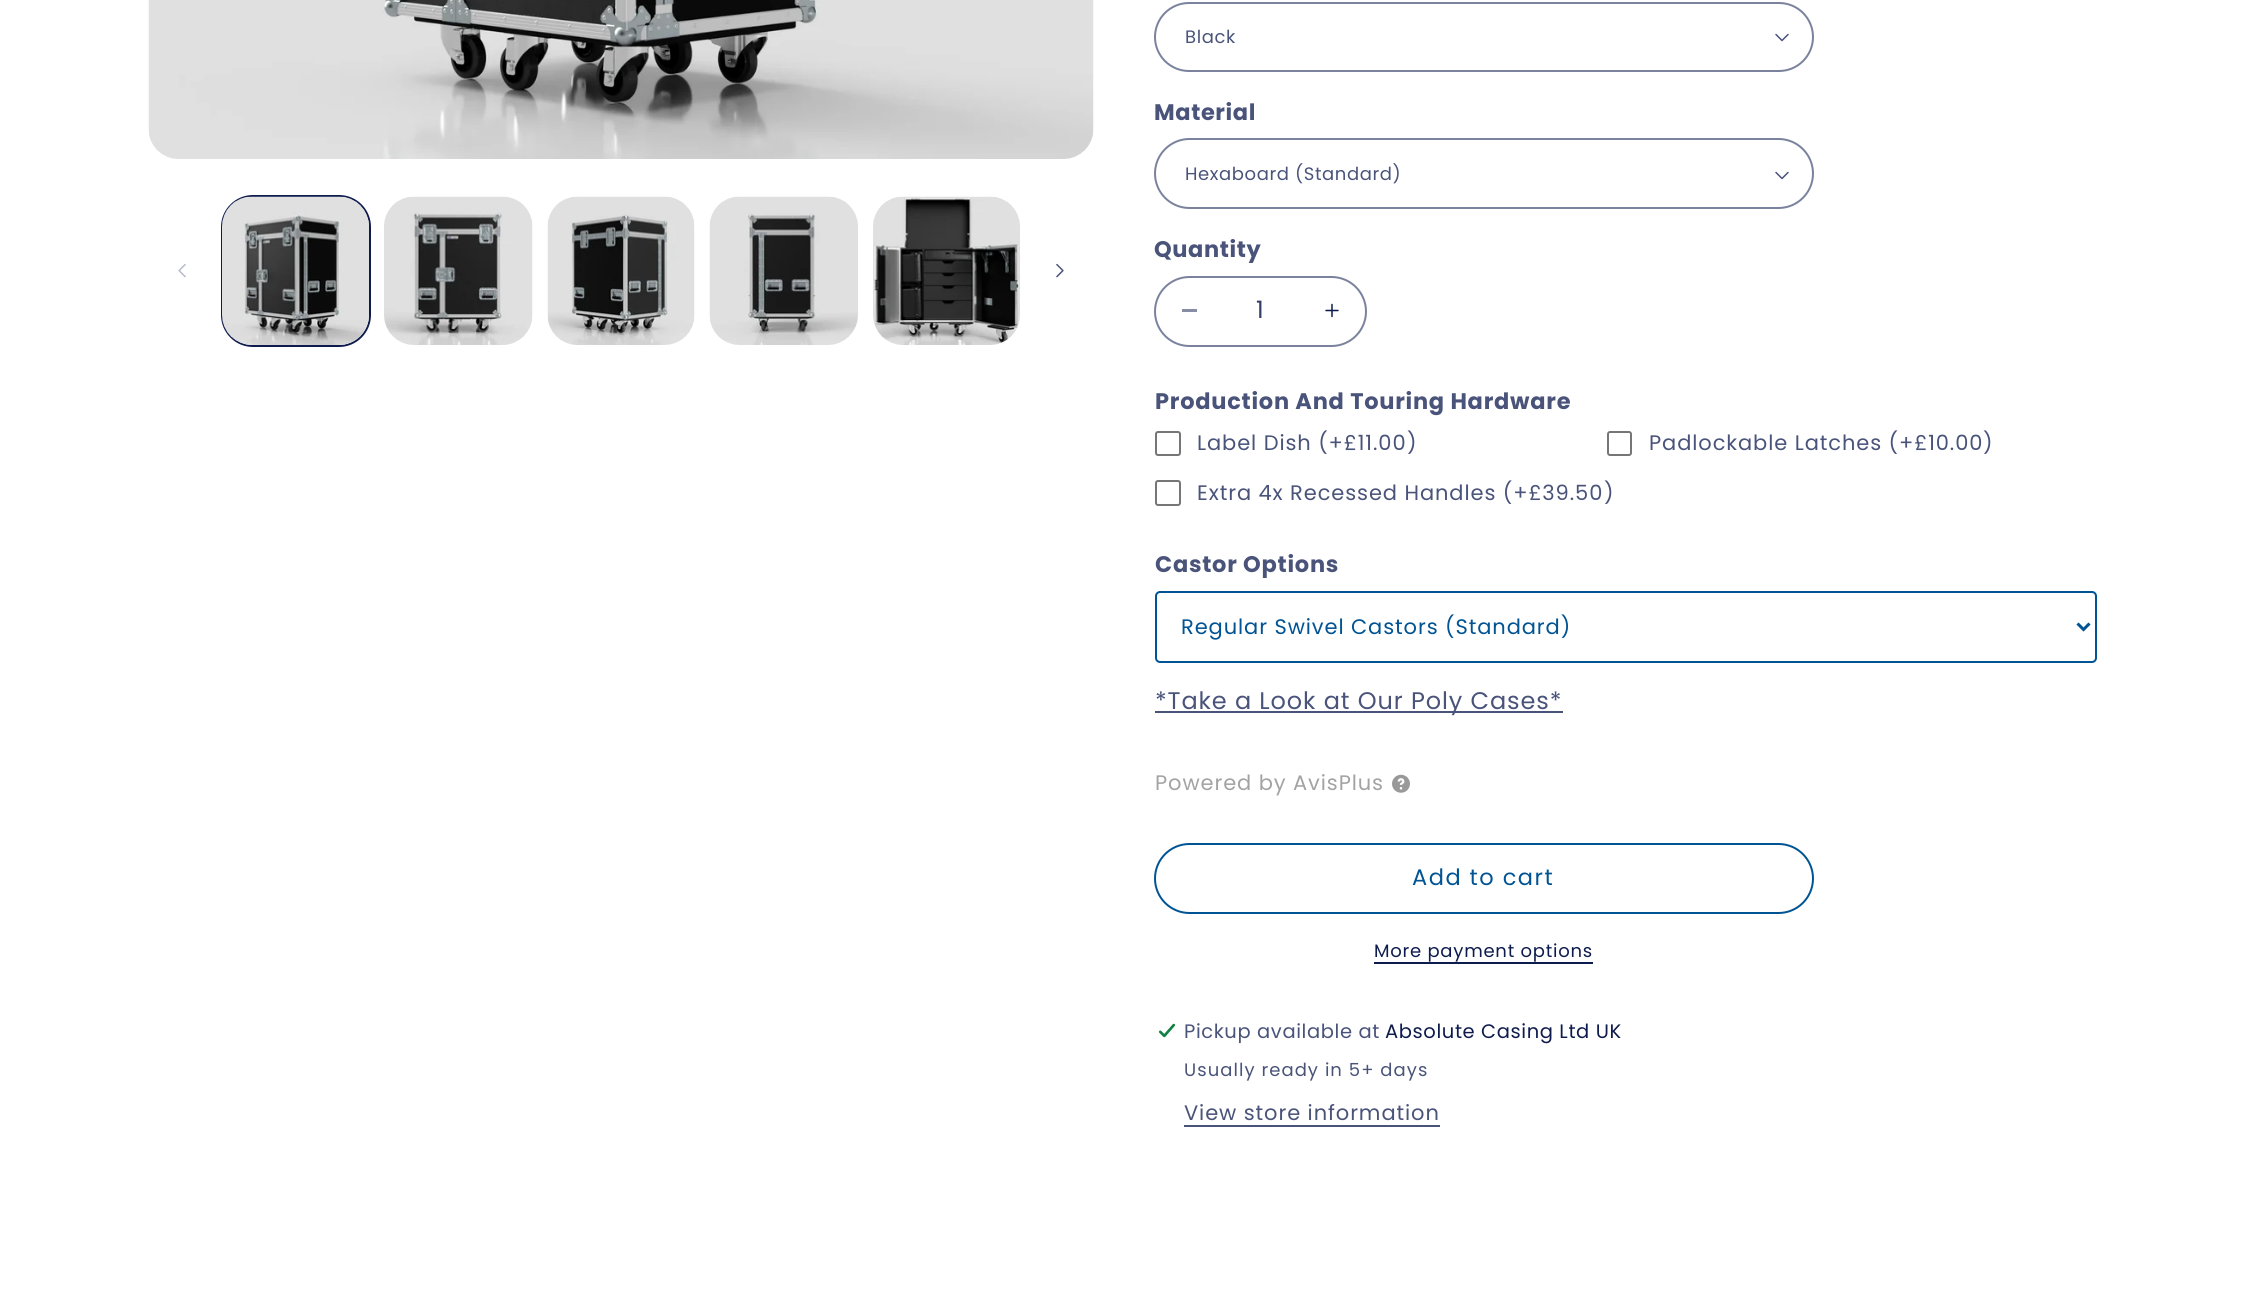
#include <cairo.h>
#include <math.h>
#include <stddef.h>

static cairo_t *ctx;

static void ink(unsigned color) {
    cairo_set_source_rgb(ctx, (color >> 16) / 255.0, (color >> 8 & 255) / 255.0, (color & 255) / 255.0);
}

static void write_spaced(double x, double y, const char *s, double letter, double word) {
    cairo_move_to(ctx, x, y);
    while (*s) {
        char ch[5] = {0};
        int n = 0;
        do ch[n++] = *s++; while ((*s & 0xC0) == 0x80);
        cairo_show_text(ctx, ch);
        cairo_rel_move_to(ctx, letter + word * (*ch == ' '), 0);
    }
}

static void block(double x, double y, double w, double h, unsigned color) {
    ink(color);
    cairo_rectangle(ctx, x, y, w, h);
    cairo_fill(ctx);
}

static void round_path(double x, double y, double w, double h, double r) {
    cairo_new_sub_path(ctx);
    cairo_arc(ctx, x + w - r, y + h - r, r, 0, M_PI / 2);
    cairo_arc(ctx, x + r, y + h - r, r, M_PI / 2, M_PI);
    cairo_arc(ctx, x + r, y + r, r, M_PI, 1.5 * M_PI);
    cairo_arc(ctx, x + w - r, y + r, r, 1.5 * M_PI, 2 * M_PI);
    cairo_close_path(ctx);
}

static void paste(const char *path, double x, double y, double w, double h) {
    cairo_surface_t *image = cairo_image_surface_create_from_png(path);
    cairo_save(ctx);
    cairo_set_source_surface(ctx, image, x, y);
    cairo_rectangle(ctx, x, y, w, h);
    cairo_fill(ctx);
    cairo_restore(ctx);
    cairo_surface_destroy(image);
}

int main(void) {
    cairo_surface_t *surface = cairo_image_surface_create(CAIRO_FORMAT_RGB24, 2247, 1294);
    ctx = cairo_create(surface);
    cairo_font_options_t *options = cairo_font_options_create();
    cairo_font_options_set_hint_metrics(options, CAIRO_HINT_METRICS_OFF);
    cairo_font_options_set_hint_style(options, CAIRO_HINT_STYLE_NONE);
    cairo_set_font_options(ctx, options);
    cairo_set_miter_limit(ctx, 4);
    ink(0xffffff);
    cairo_paint(ctx);
    paste("pic1.png", 148, 0, 946, 159);
    paste("pic2.png", 178, 264, 8, 14);
    round_path(222, 196, 148, 150, 31);
    ink(0x0e1b4d);
    cairo_stroke(ctx);
    paste("pic3.png", 222, 196, 147, 149);
    paste("pic4.png", 384, 196, 149, 149);
    paste("pic5.png", 547, 196, 148, 149);
    paste("pic6.png", 709, 196, 149, 149);
    paste("pic7.png", 873, 196, 147, 149);
    paste("pic8.png", 1056, 263, 8, 15);
    paste("pic9.png", 1775, 33, 14, 9);
    round_path(1155, 3, 658, 68, 34);
    ink(0x7a829d);
    cairo_stroke(ctx);
    cairo_select_font_face(ctx, "Poppins", CAIRO_FONT_SLANT_NORMAL, CAIRO_FONT_WEIGHT_NORMAL);
    cairo_set_font_size(ctx, 18);
    ink(0x4a547a);
    write_spaced(1185, 43, "Black", 0.6, 0);
    cairo_select_font_face(ctx, "Poppins", CAIRO_FONT_SLANT_NORMAL, CAIRO_FONT_WEIGHT_BOLD);
    cairo_set_font_size(ctx, 22.5);
    write_spaced(1154, 120, "Material", 0.6, 0);
    paste("pic9.png", 1775, 171, 14, 9);
    round_path(1155, 139, 658, 69, 34.5);
    ink(0x7a829d);
    cairo_stroke(ctx);
    cairo_select_font_face(ctx, "Poppins", CAIRO_FONT_SLANT_NORMAL, CAIRO_FONT_WEIGHT_NORMAL);
    cairo_set_font_size(ctx, 18);
    ink(0x4a547a);
    write_spaced(1185, 180, "Hexaboard (Standard)", 0.6, 0);
    cairo_select_font_face(ctx, "Poppins", CAIRO_FONT_SLANT_NORMAL, CAIRO_FONT_WEIGHT_BOLD);
    cairo_set_font_size(ctx, 22.5);
    write_spaced(1154, 257, "Quantity", 0.6, 0);
    block(1182, 309, 15, 3, 0x878da6);
    paste("pic10.png", 1325, 303, 14, 15);
    round_path(1155, 277, 211, 69, 34.5);
    ink(0x7a829d);
    cairo_stroke(ctx);
    cairo_select_font_face(ctx, "Poppins", CAIRO_FONT_SLANT_NORMAL, CAIRO_FONT_WEIGHT_NORMAL);
    cairo_set_font_size(ctx, 24);
    ink(0x323d68);
    write_spaced(1256, 318, "1", 0.9, 0);
    cairo_select_font_face(ctx, "Poppins", CAIRO_FONT_SLANT_NORMAL, CAIRO_FONT_WEIGHT_BOLD);
    cairo_set_font_size(ctx, 22.5);
    ink(0x4a547a);
    write_spaced(1155, 409, "Production And Touring Hardware", 0.75, 0);
    round_path(1156, 432, 24, 23, 2);
    ink(0x767676);
    cairo_stroke(ctx);
    cairo_select_font_face(ctx, "Poppins", CAIRO_FONT_SLANT_NORMAL, CAIRO_FONT_WEIGHT_NORMAL);
    cairo_set_font_size(ctx, 21);
    ink(0x4a547a);
    write_spaced(1197, 450, "Label Dish (+£11.00", 0.9, 0);
    write_spaced(1407, 450, ")", 0.9, 0);
    round_path(1608, 432, 23, 23, 2);
    ink(0x767676);
    cairo_stroke(ctx);
    ink(0x4a547a);
    write_spaced(1649, 450, "Padlockable Latches (+£10.00", 0.9, 0);
    write_spaced(1983, 450, ")", 0.9, 0);
    round_path(1156, 481, 24, 24, 2);
    ink(0x767676);
    cairo_stroke(ctx);
    ink(0x4a547a);
    write_spaced(1197, 500, "Extra 4x Recessed Handles (+£39.50", 0.9, 0);
    write_spaced(1604, 500, ")", 0.9, 0);
    cairo_select_font_face(ctx, "Poppins", CAIRO_FONT_SLANT_NORMAL, CAIRO_FONT_WEIGHT_BOLD);
    cairo_set_font_size(ctx, 22.5);
    write_spaced(1155, 572, "Castor Options", 0.75, 0);
    round_path(1156, 592, 940, 70, 4);
    ink(0x015493);
    cairo_stroke(ctx);
    cairo_new_path(ctx);
    cairo_move_to(ctx, 2077.5, 623.5);
    cairo_line_to(ctx, 2083.5, 629.5);
    cairo_line_to(ctx, 2089.5, 623.5);
    cairo_set_line_width(ctx, 3);
    cairo_stroke(ctx);
    cairo_select_font_face(ctx, "Poppins", CAIRO_FONT_SLANT_NORMAL, CAIRO_FONT_WEIGHT_NORMAL);
    cairo_set_font_size(ctx, 21);
    write_spaced(1181, 634, "Regular Swivel Castors (Standard)", 0.9, 0);
    block(1155, 711, 408, 2, 0x4a547a);
    cairo_set_font_size(ctx, 24);
    write_spaced(1155, 709, "*Take a Look at Our Poly Cases*", 0.9, 0);
    cairo_set_font_size(ctx, 21);
    ink(0xa3a3a3);
    write_spaced(1155, 790, "Powered by AvisPlus", 0.9, 0);
    paste("pic11.png", 1392, 774, 18, 19);
    round_path(1155, 844, 658, 69, 34.5);
    ink(0x015493);
    cairo_set_line_width(ctx, 2);
    cairo_stroke(ctx);
    cairo_set_font_size(ctx, 22.5);
    write_spaced(1412, 885, "Add to cart", 1.5, 0);
    cairo_set_font_size(ctx, 18);
    ink(0x0e1b4d);
    write_spaced(1374, 957, "More payment options", 0.75, 0);
    block(1374, 962, 219, 2, 0x0e1b4d);
    paste("pic12.png", 1158, 1023, 18, 15);
    cairo_set_font_size(ctx, 19.5);
    ink(0x4a547a);
    write_spaced(1184, 1038, "Pickup available at", 0.6, 0);
    ink(0x0e1b4d);
    write_spaced(1385, 1038, "Absolute Casing Ltd UK", 0.6, 0);
    cairo_set_font_size(ctx, 18);
    ink(0x4a547a);
    write_spaced(1184, 1076, "Usually ready in 5+ days", 1.05, 0);
    cairo_set_font_size(ctx, 21);
    write_spaced(1184, 1120, "View store information", 0.9, 0);
    block(1184, 1125, 256, 2, 0x4a547a);
    cairo_surface_write_to_png(surface, "screenshot.png");
    cairo_font_options_destroy(options);
    cairo_destroy(ctx);
    cairo_surface_destroy(surface);
    return 0;
}
